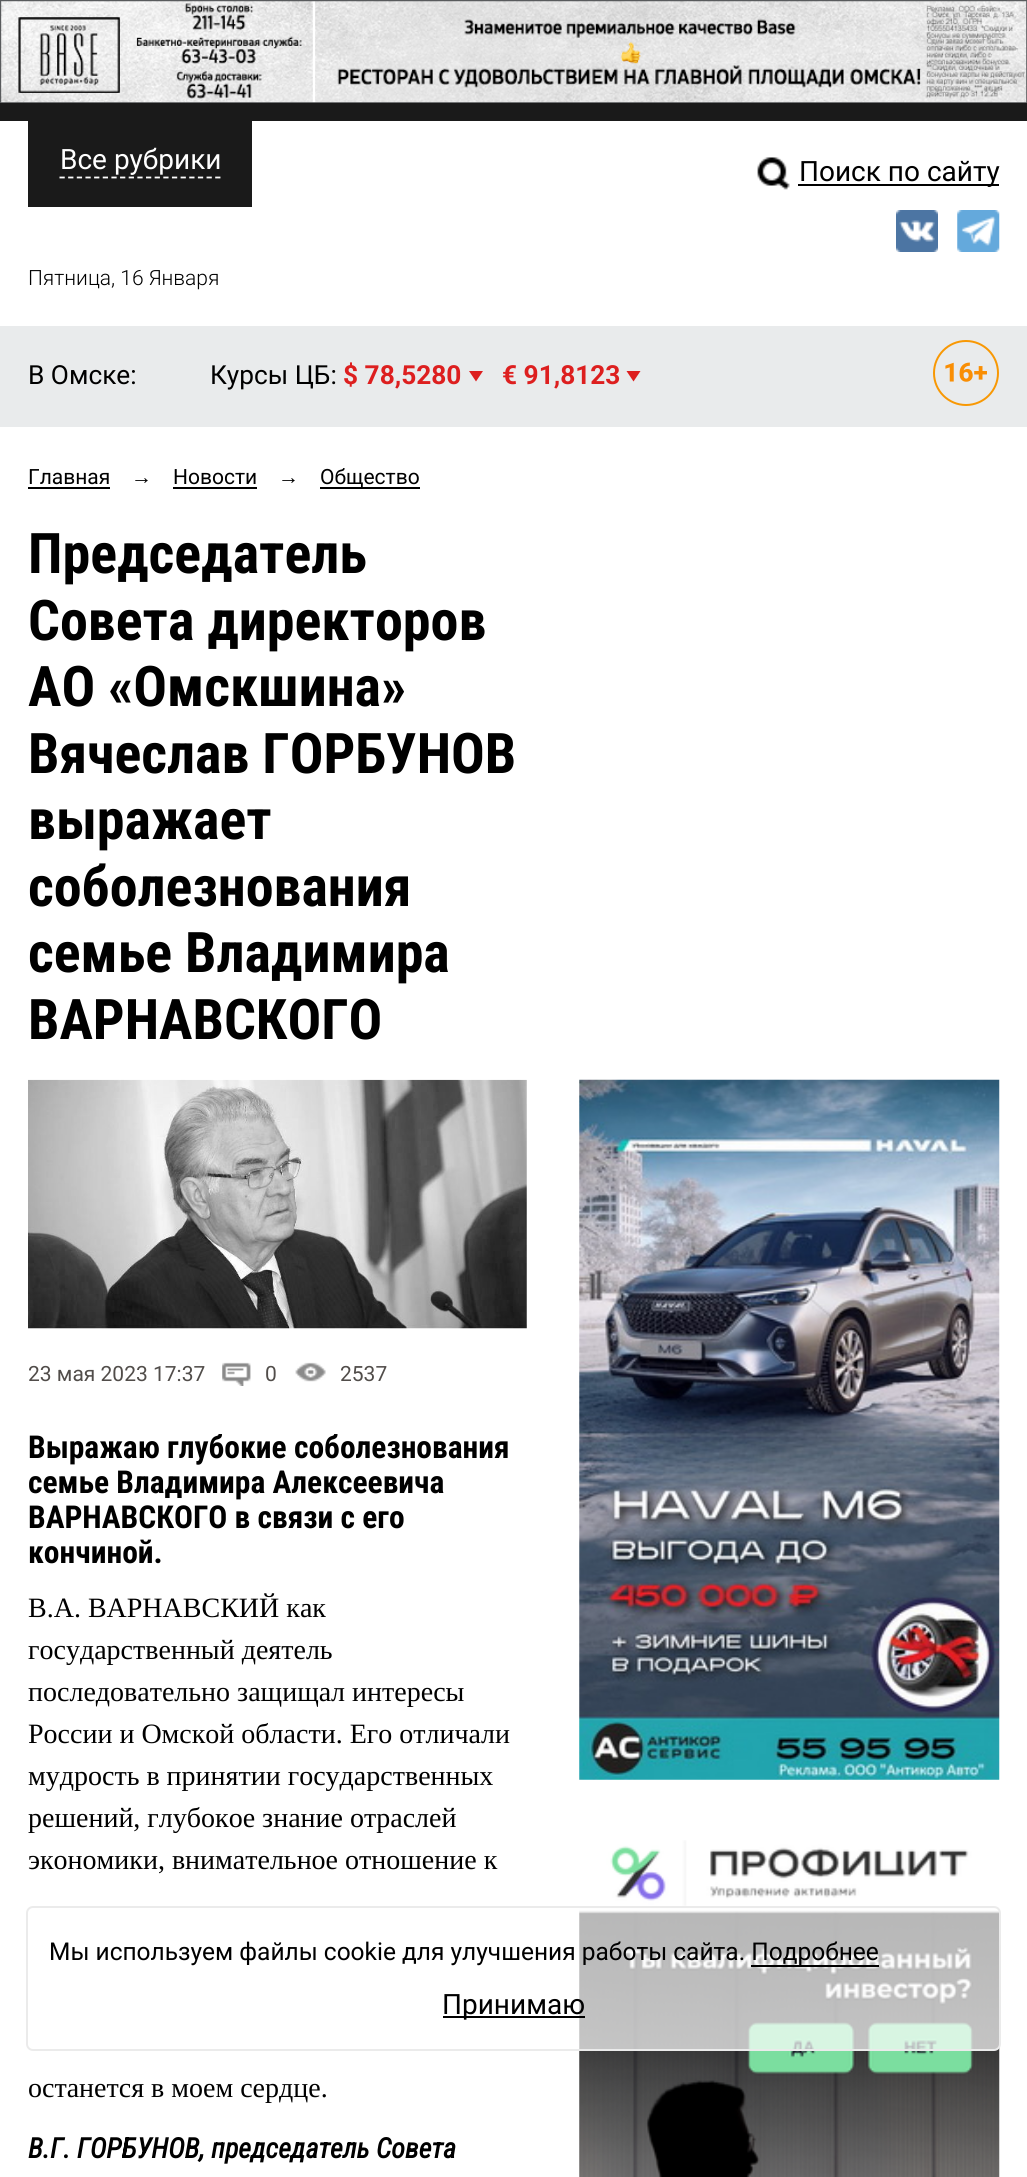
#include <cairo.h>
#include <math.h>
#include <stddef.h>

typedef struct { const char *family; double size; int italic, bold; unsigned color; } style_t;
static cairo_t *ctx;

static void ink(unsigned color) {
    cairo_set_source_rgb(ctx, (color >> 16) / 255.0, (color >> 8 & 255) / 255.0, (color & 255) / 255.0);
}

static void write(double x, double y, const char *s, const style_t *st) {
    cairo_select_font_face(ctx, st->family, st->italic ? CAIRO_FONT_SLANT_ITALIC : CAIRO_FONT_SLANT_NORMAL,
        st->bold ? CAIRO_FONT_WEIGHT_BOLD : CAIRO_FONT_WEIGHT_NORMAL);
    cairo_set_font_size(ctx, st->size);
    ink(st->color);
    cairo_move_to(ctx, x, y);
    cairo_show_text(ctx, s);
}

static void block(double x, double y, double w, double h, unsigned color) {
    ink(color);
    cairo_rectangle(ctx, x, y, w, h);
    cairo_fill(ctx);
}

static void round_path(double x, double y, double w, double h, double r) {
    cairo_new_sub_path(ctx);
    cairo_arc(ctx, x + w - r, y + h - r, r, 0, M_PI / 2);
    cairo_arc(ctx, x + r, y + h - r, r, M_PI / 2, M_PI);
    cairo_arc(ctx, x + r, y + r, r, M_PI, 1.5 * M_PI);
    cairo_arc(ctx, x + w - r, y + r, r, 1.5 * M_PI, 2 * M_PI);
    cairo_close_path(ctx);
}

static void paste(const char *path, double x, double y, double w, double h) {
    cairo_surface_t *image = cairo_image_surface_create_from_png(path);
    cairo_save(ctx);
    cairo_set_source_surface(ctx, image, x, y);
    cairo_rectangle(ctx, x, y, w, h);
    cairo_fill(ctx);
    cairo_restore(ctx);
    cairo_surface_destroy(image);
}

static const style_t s1 = {"Roboto", 28, 0, 0, 0xffffff};
static const style_t s2 = {"Roboto", 28, 0, 0, 0x000000};
static const style_t s3 = {"Roboto Light", 21, 0, 0, 0x000000};
static const style_t s4 = {"Roboto", 26.25, 0, 0, 0x000000};
static const style_t s5 = {"Roboto", 26.25, 0, 1, 0xdd1f1f};
static const style_t s6 = {"Roboto", 21, 0, 0, 0x000000};
static const style_t s7 = {"Liberation Sans", 21, 0, 0, 0x000000};
static const style_t s8 = {"Roboto Condensed", 56, 0, 1, 0x000000};
static const style_t s9 = {"Roboto", 21, 0, 0, 0x514d4a};
static const style_t s10 = {"Roboto Condensed", 31.5, 0, 1, 0x000000};
static const style_t s11 = {"Liberation Serif", 28, 0, 0, 0x000000};
static const style_t s12 = {"Roboto Condensed", 28, 1, 1, 0x000000};
static const style_t s13 = {"Roboto", 24.5, 0, 0, 0x000000};

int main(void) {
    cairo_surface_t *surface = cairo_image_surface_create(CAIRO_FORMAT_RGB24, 1027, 2177);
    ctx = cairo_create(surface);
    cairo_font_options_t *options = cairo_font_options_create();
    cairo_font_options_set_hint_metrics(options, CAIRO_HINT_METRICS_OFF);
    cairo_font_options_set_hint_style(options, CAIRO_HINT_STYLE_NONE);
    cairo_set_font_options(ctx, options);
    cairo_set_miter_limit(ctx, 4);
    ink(0xffffff);
    cairo_paint(ctx);
    paste("pic1.png", 0, 0, 1027, 103);
    block(0, 103, 1027, 18, 0x1a1a1a);
    block(28, 121, 224, 86, 0x1a1a1a);
    write(60, 169, "Все рубрики", &s1);
    cairo_new_path(ctx);
    cairo_move_to(ctx, 59.5, 177.5);
    cairo_line_to(ctx, 220.5, 177.5);
    cairo_set_line_width(ctx, 1.8);
    cairo_set_dash(ctx, (double[]){5.25, 3.4}, 2, 0);
    cairo_stroke(ctx);
    paste("pic2.png", 757, 157, 33, 33);
    block(798, 184, 201, 2, 0x000000);
    write(799, 181, "Поиск по сайту", &s2);
    paste("pic3.png", 896, 210, 42, 42);
    paste("pic4.png", 957, 210, 43, 42);
    write(28, 285, "Пятница, 16 Января", &s3);
    block(0, 326, 1027, 101, 0xe9ebec);
    write(28, 384, "В Омске:", &s4);
    write(210, 384, "Курсы ЦБ:", &s4);
    write(343, 384, "$ 78,5280", &s5);
    cairo_new_path(ctx);
    cairo_move_to(ctx, 469, 371);
    cairo_line_to(ctx, 483, 371);
    cairo_line_to(ctx, 476, 381.5);
    cairo_close_path(ctx);
    cairo_fill(ctx);
    write(502, 384, "€ 91,8123", &s5);
    cairo_new_path(ctx);
    cairo_move_to(ctx, 626.5, 371);
    cairo_line_to(ctx, 640.5, 371);
    cairo_line_to(ctx, 633.5, 381.5);
    cairo_close_path(ctx);
    cairo_fill(ctx);
    paste("pic5.png", 933, 340, 66, 66);
    write(28, 484, "Главная", &s6);
    block(28, 487, 82, 2, 0x000000);
    write(131, 484, "→", &s7);
    write(173, 484, "Новости", &s6);
    block(173, 487, 84, 2, 0x000000);
    write(278, 484, "→", &s7);
    block(320, 487, 100, 2, 0x000000);
    write(320, 484, "Общество", &s6);
    write(28, 573, "Председатель", &s8);
    write(28, 640, "Совета директоров", &s8);
    write(28, 706, "АО «Омскшина»", &s8);
    write(28, 773, "Вячеслав ГОРБУНОВ", &s8);
    write(28, 839, "выражает", &s8);
    write(28, 906, "соболезнования", &s8);
    write(28, 972, "семье Владимира", &s8);
    write(28, 1039, "ВАРНАВСКОГО", &s8);
    paste("pic6.png", 28, 1079, 499, 250);
    write(28, 1381, "23 мая 2023 17:37", &s9);
    paste("pic7.png", 222, 1362, 29, 24);
    write(265, 1381, "0", &s9);
    paste("pic8.png", 295, 1362, 31, 20);
    write(340, 1381, "2537", &s9);
    write(28, 1458, "Выражаю глубокие соболезнования", &s10);
    write(28, 1493, "семье Владимира Алексеевича", &s10);
    write(28, 1528, "ВАРНАВСКОГО в связи с его", &s10);
    write(28, 1563, "кончиной.", &s10);
    write(28, 1617, "В.А. ВАРНАВСКИЙ как", &s11);
    write(28, 1659, "государственный деятель", &s11);
    write(28, 1701, "последовательно защищал интересы", &s11);
    write(28, 1743, "России и Омской области. Его отличали", &s11);
    write(28, 1785, "мудрость в принятии государственных", &s11);
    write(28, 1827, "решений, глубокое знание отраслей", &s11);
    write(28, 1869, "экономики, внимательное отношение к", &s11);
    write(28, 2097, "останется в моем сердце.", &s11);
    write(28, 2158, "В.Г. ГОРБУНОВ, председатель Совета", &s12);
    paste("pic9.png", 579, 1079, 421, 701);
    paste("pic10.png", 579, 1840, 421, 337);
    cairo_set_source_rgba(ctx, 1, 1, 1, 0.7);
    round_path(27, 1907, 973, 143, 6);
    cairo_fill_preserve(ctx);
    ink(0xebebeb);
    cairo_set_line_width(ctx, 2);
    cairo_set_dash(ctx, NULL, 0, 0);
    cairo_stroke(ctx);
    write(49, 1960, "Мы используем файлы cookie для улучшения работы сайта. Подробнее", &s13);
    block(751, 1965, 128, 2, 0x000000);
    block(443, 2016, 142, 2, 0x000000);
    write(442, 2014, "Принимаю", &s2);
    cairo_surface_write_to_png(surface, "screenshot.png");
    cairo_font_options_destroy(options);
    cairo_destroy(ctx);
    cairo_surface_destroy(surface);
    return 0;
}
